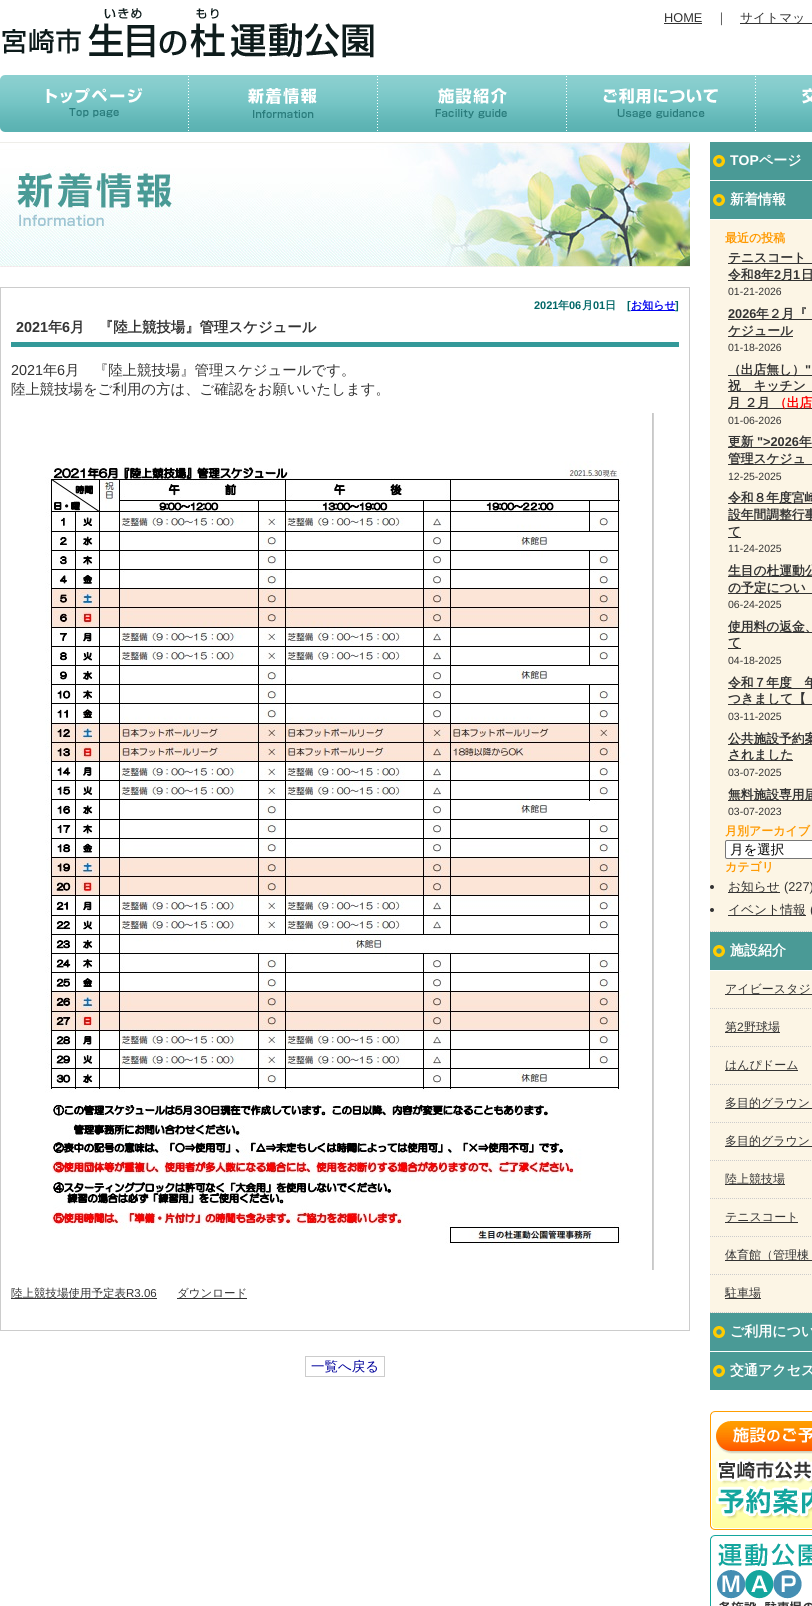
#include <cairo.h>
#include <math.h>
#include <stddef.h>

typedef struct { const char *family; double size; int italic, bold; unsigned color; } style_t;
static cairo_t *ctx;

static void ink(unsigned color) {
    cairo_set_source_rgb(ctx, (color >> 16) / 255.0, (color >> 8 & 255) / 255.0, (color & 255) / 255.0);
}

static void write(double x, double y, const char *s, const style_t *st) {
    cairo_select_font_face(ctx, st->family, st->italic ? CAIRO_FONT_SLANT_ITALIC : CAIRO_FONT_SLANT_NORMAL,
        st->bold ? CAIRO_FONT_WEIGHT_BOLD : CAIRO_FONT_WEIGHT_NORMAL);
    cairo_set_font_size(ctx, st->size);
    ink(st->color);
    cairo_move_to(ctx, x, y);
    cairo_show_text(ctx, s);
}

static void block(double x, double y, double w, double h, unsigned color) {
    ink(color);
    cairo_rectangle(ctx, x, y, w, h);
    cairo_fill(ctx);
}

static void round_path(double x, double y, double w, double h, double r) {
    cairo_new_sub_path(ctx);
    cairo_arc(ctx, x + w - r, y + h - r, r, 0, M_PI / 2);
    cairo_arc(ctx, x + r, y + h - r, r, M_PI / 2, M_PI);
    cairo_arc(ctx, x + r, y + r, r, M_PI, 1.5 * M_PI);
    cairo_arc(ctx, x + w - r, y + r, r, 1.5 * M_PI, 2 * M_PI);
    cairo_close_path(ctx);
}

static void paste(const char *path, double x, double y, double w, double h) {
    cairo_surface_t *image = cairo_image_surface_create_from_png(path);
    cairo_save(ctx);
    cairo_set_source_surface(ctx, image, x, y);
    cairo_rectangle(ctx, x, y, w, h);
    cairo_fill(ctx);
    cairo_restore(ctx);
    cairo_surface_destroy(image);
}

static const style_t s1 = {"Liberation Sans", 12.75, 0, 0, 0x333333};
static const style_t s2 = {"WenQuanYi Zen Hei Medium", 12.75, 0, 0, 0x333333};
static const style_t s3 = {"Liberation Sans", 11, 0, 1, 0x006666};
static const style_t s4 = {"WenQuanYi Zen Hei", 11, 0, 1, 0x006666};
static const style_t s5 = {"WenQuanYi Zen Hei", 11, 0, 1, 0x0000ee};
static const style_t s6 = {"Liberation Sans", 14.4, 0, 1, 0x333333};
static const style_t s7 = {"WenQuanYi Zen Hei", 14.4, 0, 1, 0x333333};
static const style_t s8 = {"Liberation Sans", 14.4, 0, 0, 0x333333};
static const style_t s9 = {"WenQuanYi Zen Hei Medium", 14.4, 0, 0, 0x333333};
static const style_t s10 = {"WenQuanYi Zen Hei Medium", 11.5, 0, 0, 0x333333};
static const style_t s11 = {"Liberation Sans", 11.5, 0, 0, 0x333333};
static const style_t s12 = {"WenQuanYi Zen Hei Medium", 13.5, 0, 0, 0x00019b};
static const style_t s13 = {"Liberation Sans", 14, 0, 1, 0xffffff};
static const style_t s14 = {"WenQuanYi Zen Hei", 14, 0, 1, 0xffffff};
static const style_t s15 = {"WenQuanYi Zen Hei", 12, 0, 1, 0xff9900};
static const style_t s16 = {"WenQuanYi Zen Hei", 12.75, 0, 1, 0x333333};
static const style_t s17 = {"Liberation Sans", 12.75, 0, 1, 0x333333};
static const style_t s18 = {"Liberation Sans", 10.5, 0, 0, 0x333333};
static const style_t s19 = {"WenQuanYi Zen Hei", 12.75, 0, 1, 0xff0000};
static const style_t s20 = {"WenQuanYi Zen Hei Medium", 13.5, 0, 0, 0x000000};
static const style_t s21 = {"WenQuanYi Zen Hei Medium", 12, 0, 0, 0x333333};
static const style_t s22 = {"Liberation Sans", 12, 0, 0, 0x333333};

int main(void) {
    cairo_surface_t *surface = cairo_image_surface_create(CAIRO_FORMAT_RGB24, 812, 1606);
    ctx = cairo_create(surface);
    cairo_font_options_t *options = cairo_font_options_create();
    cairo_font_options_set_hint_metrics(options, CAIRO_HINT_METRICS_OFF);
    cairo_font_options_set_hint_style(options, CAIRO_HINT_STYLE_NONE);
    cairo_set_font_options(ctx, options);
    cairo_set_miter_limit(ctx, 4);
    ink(0xffffff);
    cairo_paint(ctx);
    paste("pic1.png", 2, 8, 372, 50);
    write(664, 22, "HOME", &s1);
    block(664, 23, 38, 1, 0x333333);
    write(715, 22, "｜", &s2);
    block(740, 23, 72, 1, 0x333333);
    write(740, 22, "サイトマッ", &s2);
    paste("pic2.png", 0, 75, 189, 57);
    paste("pic3.png", 189, 75, 189, 57);
    paste("pic4.png", 378, 75, 189, 57);
    paste("pic5.png", 567, 75, 189, 57);
    paste("pic6.png", 756, 75, 56, 57);
    paste("pic7.png", 0, 142, 690, 125);
    cairo_rectangle(ctx, 0.5, 287.5, 689, 1043);
    ink(0xcccccc);
    cairo_set_line_width(ctx, 1);
    cairo_stroke(ctx);
    write(534, 309, "2021", &s3);
    write(558, 309, "年", &s4);
    write(569, 309, "06", &s3);
    write(582, 309, "月", &s4);
    write(593, 309, "01", &s3);
    write(605, 309, "日", &s4);
    write(627, 309, "[", &s3);
    block(631, 310, 44, 1, 0x0000ee);
    write(631, 309, "お知らせ", &s5);
    write(675, 309, "]", &s3);
    block(11, 342, 668, 5, 0x339999);
    write(16, 332, "2021", &s6);
    write(48, 332, "年", &s7);
    write(62, 332, "6", &s6);
    write(70, 332, "月　『陸上競技場』管理スケジュール", &s7);
    write(11, 375, "2021", &s8);
    write(43, 375, "年", &s9);
    write(57, 375, "6", &s8);
    write(65, 375, "月　『陸上競技場』管理スケジュールです。", &s9);
    write(11, 394, "陸上競技場をご利用の方は、ご確認をお願いいたします。", &s9);
    paste("pic8.png", 45, 413, 609, 857);
    block(11, 1298, 146, 1, 0x333333);
    write(11, 1297, "陸上競技場使用予定表", &s10);
    write(126, 1297, "R3.06", &s11);
    block(177, 1298, 70, 1, 0x333333);
    write(177, 1297, "ダウンロード", &s10);
    cairo_rectangle(ctx, 305.5, 1356.5, 79, 20);
    ink(0xcccccc);
    cairo_stroke(ctx);
    write(311, 1371, "一覧へ戻る", &s12);
    block(710, 142, 102, 1248, 0x4a9a96);
    paste("pic9.png", 713, 155, 12, 12);
    block(710, 180, 102, 1, 0xffffff);
    write(730, 165, "TOP", &s13);
    write(759, 165, "ページ", &s14);
    paste("pic9.png", 713, 194, 12, 12);
    block(710, 219, 102, 1, 0xffffff);
    write(730, 204, "新着情報", &s14);
    block(710, 220, 102, 712, 0xfcf5e5);
    cairo_new_path(ctx);
    cairo_move_to(ctx, 710, 931.5);
    cairo_line_to(ctx, 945, 931.5);
    ink(0xcccccc);
    cairo_set_dash(ctx, (double[]){1, 1}, 2, 0);
    cairo_stroke(ctx);
    write(725, 242, "最近の投稿", &s15);
    block(728, 263, 84, 1, 0x333333);
    write(728, 262, "テニスコート", &s16);
    block(728, 280, 84, 1, 0x333333);
    write(728, 279, "令和", &s16);
    write(754, 279, "8", &s17);
    write(761, 279, "年", &s16);
    write(774, 279, "2", &s17);
    write(781, 279, "月", &s16);
    write(793, 279, "1", &s17);
    write(801, 279, "日", &s16);
    write(728, 295, "01-21-2026", &s18);
    write(728, 318, "2026", &s17);
    block(728, 319, 84, 1, 0x333333);
    write(756, 318, "年２月『", &s16);
    block(728, 336, 65, 1, 0x333333);
    write(728, 335, "ケジュール", &s16);
    write(728, 351, "01-18-2026", &s18);
    block(728, 375, 84, 1, 0x333333);
    write(728, 374, "（出店無し）", &s16);
    write(805, 374, "\"", &s17);
    block(728, 391, 84, 1, 0x333333);
    write(728, 390, "祝　キッチン", &s16);
    block(728, 408, 84, 1, 0x333333);
    write(728, 407, "月 ２月", &s16);
    write(774, 407, "（出店", &s19);
    write(728, 424, "01-06-2026", &s18);
    block(728, 447, 84, 1, 0x333333);
    write(728, 446, "更新", &s16);
    write(757, 446, "\">2026", &s17);
    write(799, 446, "年", &s16);
    block(728, 464, 84, 1, 0x333333);
    write(728, 463, "管理スケジュ", &s16);
    write(728, 480, "12-25-2025", &s18);
    block(728, 503, 84, 1, 0x333333);
    write(728, 502, "令和８年度宮崎", &s16);
    block(728, 520, 84, 1, 0x333333);
    write(728, 519, "設年間調整行事", &s16);
    block(728, 537, 13, 1, 0x333333);
    write(728, 536, "て", &s16);
    write(728, 552, "11-24-2025", &s18);
    block(728, 576, 84, 1, 0x333333);
    write(728, 575, "生目の杜運動公", &s16);
    block(728, 593, 84, 1, 0x333333);
    write(728, 592, "の予定につい", &s16);
    write(728, 608, "06-24-2025", &s18);
    block(728, 632, 84, 1, 0x333333);
    write(728, 631, "使用料の返金、", &s16);
    block(728, 648, 13, 1, 0x333333);
    write(728, 647, "て", &s16);
    write(728, 664, "04-18-2025", &s18);
    block(728, 688, 84, 1, 0x333333);
    write(728, 687, "令和７年度　年", &s16);
    block(728, 704, 84, 1, 0x333333);
    write(728, 703, "つきまして【", &s16);
    write(728, 720, "03-11-2025", &s18);
    block(728, 744, 84, 1, 0x333333);
    write(728, 743, "公共施設予約案", &s16);
    block(728, 760, 65, 1, 0x333333);
    write(728, 759, "されました", &s16);
    write(728, 776, "03-07-2025", &s18);
    block(728, 800, 84, 1, 0x333333);
    write(728, 799, "無料施設専用届", &s16);
    write(728, 815, "03-07-2023", &s18);
    write(725, 835, "月別アーカイブ", &s15);
    ink(0xffffff);
    round_path(725.5, 840.5, 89, 18, 1.5);
    cairo_fill_preserve(ctx);
    ink(0x767676);
    cairo_set_dash(ctx, NULL, 0, 0);
    cairo_stroke(ctx);
    write(730, 854, "月を選択", &s20);
    write(725, 871, "カテゴリ", &s15);
    ink(0x333333);
    cairo_new_path(ctx);
    cairo_arc(ctx, 712, 887, 2, 0, 2 * M_PI);
    cairo_fill(ctx);
    block(728, 892, 52, 1, 0x333333);
    write(728, 891, "お知らせ", &s2);
    write(784, 891, "(227)", &s1);
    cairo_new_path(ctx);
    cairo_arc(ctx, 712, 910, 2, 0, 2 * M_PI);
    cairo_fill(ctx);
    block(728, 915, 78, 1, 0x333333);
    write(728, 914, "イベント情報", &s2);
    write(810, 914, "(", &s1);
    paste("pic9.png", 713, 945, 12, 12);
    block(710, 970, 102, 1, 0xffffff);
    write(730, 955, "施設紹介", &s14);
    block(710, 971, 102, 342, 0xfcf5e5);
    cairo_new_path(ctx);
    cairo_move_to(ctx, 710, 1008.5);
    cairo_line_to(ctx, 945, 1008.5);
    ink(0xcccccc);
    cairo_set_dash(ctx, (double[]){1, 1}, 2, 0);
    cairo_stroke(ctx);
    block(725, 994, 87, 1, 0x333333);
    write(725, 993, "アイビースタジ", &s21);
    cairo_new_path(ctx);
    cairo_move_to(ctx, 710, 1046.5);
    cairo_line_to(ctx, 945, 1046.5);
    ink(0xcccccc);
    cairo_stroke(ctx);
    block(725, 1032, 55, 1, 0x333333);
    write(725, 1031, "第", &s21);
    write(737, 1031, "2", &s22);
    write(744, 1031, "野球場", &s21);
    cairo_new_path(ctx);
    cairo_move_to(ctx, 710, 1084.5);
    cairo_line_to(ctx, 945, 1084.5);
    ink(0xcccccc);
    cairo_stroke(ctx);
    block(725, 1070, 73, 1, 0x333333);
    write(725, 1069, "はんぴドーム", &s21);
    cairo_new_path(ctx);
    cairo_move_to(ctx, 710, 1122.5);
    cairo_line_to(ctx, 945, 1122.5);
    ink(0xcccccc);
    cairo_stroke(ctx);
    block(725, 1108, 87, 1, 0x333333);
    write(725, 1107, "多目的グラウン", &s21);
    cairo_new_path(ctx);
    cairo_move_to(ctx, 710, 1160.5);
    cairo_line_to(ctx, 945, 1160.5);
    ink(0xcccccc);
    cairo_stroke(ctx);
    block(725, 1146, 87, 1, 0x333333);
    write(725, 1145, "多目的グラウン", &s21);
    cairo_new_path(ctx);
    cairo_move_to(ctx, 710, 1198.5);
    cairo_line_to(ctx, 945, 1198.5);
    ink(0xcccccc);
    cairo_stroke(ctx);
    block(725, 1184, 60, 1, 0x333333);
    write(725, 1183, "陸上競技場", &s21);
    cairo_new_path(ctx);
    cairo_move_to(ctx, 710, 1236.5);
    cairo_line_to(ctx, 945, 1236.5);
    ink(0xcccccc);
    cairo_stroke(ctx);
    block(725, 1222, 73, 1, 0x333333);
    write(725, 1221, "テニスコート", &s21);
    cairo_new_path(ctx);
    cairo_move_to(ctx, 710, 1274.5);
    cairo_line_to(ctx, 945, 1274.5);
    ink(0xcccccc);
    cairo_stroke(ctx);
    block(725, 1260, 87, 1, 0x333333);
    write(725, 1259, "体育館（管理棟", &s21);
    cairo_new_path(ctx);
    cairo_move_to(ctx, 710, 1312.5);
    cairo_line_to(ctx, 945, 1312.5);
    ink(0xcccccc);
    cairo_stroke(ctx);
    block(725, 1298, 36, 1, 0x333333);
    write(725, 1297, "駐車場", &s21);
    paste("pic9.png", 713, 1326, 12, 12);
    block(710, 1351, 102, 1, 0xffffff);
    write(730, 1336, "ご利用につい", &s14);
    paste("pic9.png", 713, 1365, 12, 12);
    write(730, 1375, "交通アクセス", &s14);
    paste("pic10.png", 710, 1411, 102, 119);
    paste("pic11.png", 710, 1535, 102, 71);
    cairo_surface_write_to_png(surface, "screenshot.png");
    cairo_font_options_destroy(options);
    cairo_destroy(ctx);
    cairo_surface_destroy(surface);
    return 0;
}
